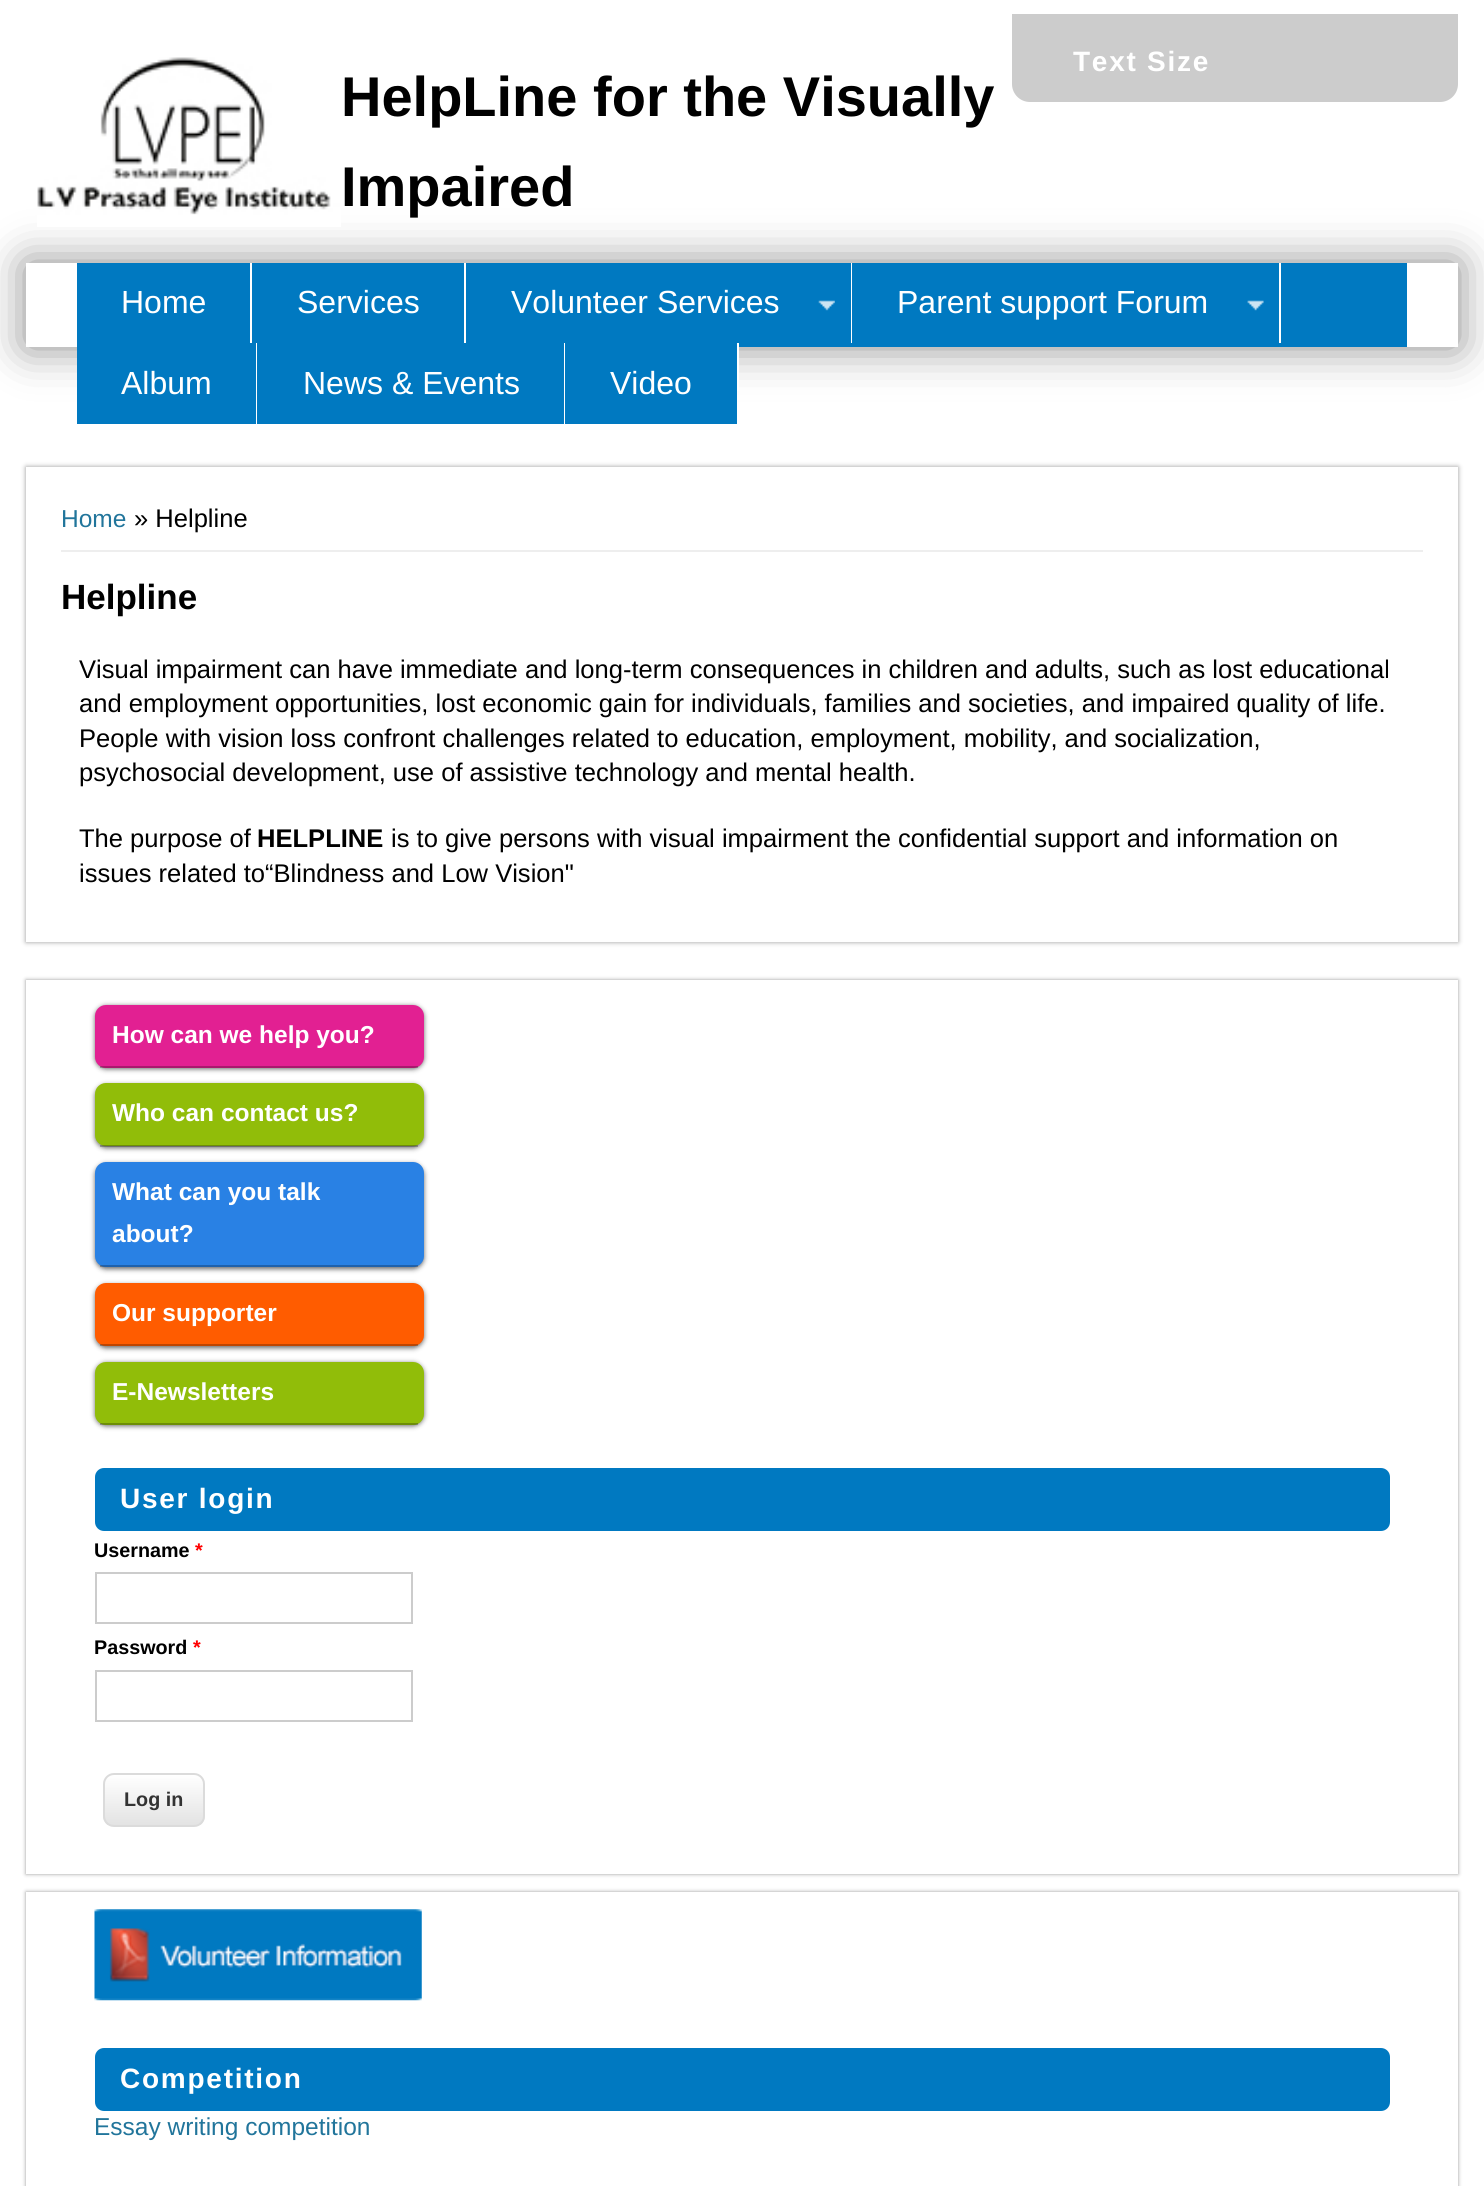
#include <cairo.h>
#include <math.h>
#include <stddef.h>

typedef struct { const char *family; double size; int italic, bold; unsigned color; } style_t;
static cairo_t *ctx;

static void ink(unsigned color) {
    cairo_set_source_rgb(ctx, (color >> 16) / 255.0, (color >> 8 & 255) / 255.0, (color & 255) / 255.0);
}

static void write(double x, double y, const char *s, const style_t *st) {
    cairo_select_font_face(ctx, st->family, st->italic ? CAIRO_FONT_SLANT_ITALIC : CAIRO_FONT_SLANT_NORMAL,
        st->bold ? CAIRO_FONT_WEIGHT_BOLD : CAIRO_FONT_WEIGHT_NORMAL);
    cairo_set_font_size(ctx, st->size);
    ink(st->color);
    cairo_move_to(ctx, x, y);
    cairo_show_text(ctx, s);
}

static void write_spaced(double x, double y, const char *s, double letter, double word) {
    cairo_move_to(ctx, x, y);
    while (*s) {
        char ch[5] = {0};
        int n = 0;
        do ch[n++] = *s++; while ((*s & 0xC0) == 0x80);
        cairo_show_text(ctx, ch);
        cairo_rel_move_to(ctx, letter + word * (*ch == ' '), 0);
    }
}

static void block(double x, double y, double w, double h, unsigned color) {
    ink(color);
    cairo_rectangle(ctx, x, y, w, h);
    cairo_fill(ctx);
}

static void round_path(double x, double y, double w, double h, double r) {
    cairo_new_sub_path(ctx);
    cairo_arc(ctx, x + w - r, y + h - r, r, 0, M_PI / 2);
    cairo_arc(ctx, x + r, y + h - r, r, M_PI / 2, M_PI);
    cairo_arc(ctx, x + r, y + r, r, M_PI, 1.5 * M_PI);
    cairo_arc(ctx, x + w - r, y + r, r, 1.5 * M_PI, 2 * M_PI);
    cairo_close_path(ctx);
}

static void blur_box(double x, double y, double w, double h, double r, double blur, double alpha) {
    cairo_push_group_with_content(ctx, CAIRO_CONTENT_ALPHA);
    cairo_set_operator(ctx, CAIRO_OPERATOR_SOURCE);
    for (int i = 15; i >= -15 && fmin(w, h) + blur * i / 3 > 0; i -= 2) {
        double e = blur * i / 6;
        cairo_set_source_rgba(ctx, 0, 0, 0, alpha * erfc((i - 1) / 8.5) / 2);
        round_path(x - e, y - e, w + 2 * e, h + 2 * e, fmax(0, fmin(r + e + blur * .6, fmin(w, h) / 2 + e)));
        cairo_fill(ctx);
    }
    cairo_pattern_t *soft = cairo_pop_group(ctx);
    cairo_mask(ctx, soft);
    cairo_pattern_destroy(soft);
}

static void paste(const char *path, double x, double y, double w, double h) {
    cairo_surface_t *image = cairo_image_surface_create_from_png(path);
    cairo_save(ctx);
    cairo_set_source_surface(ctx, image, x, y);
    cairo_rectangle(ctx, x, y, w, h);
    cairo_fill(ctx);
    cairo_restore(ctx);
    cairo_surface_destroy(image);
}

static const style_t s1 = {"Liberation Sans", 56, 0, 1, 0x000000};
static const style_t s2 = {"Liberation Sans", 32, 0, 0, 0xffffff};
static const style_t s3 = {"Liberation Sans", 24.5, 0, 0, 0x21759b};
static const style_t s4 = {"Liberation Sans", 25.55, 0, 0, 0x000000};
static const style_t s5 = {"Liberation Sans", 35, 0, 1, 0x000000};
static const style_t s6 = {"Liberation Sans", 25.55, 0, 1, 0x000000};
static const style_t s7 = {"Liberation Sans", 24.5, 0, 1, 0xffffff};
static const style_t s8 = {"Liberation Sans", 19.75, 0, 1, 0x000000};
static const style_t s9 = {"Liberation Sans", 19.75, 0, 1, 0xff0000};
static const style_t s10 = {"Liberation Sans", 19.75, 0, 1, 0x333333};

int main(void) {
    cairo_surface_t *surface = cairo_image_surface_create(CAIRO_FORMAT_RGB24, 1484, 2186);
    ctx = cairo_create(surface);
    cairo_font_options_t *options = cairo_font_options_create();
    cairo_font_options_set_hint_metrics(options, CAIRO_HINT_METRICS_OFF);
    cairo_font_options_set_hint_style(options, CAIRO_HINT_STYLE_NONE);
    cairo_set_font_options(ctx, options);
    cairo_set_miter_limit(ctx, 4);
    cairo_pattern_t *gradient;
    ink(0xffffff);
    cairo_paint(ctx);
    cairo_save(ctx);
    cairo_set_fill_rule(ctx, CAIRO_FILL_RULE_EVEN_ODD);
    cairo_new_path(ctx);
    cairo_move_to(ctx, 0, 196);
    cairo_line_to(ctx, 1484, 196);
    cairo_line_to(ctx, 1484, 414);
    cairo_line_to(ctx, 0, 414);
    cairo_close_path(ctx);
    cairo_move_to(ctx, 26, 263);
    cairo_line_to(ctx, 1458, 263);
    cairo_line_to(ctx, 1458, 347);
    cairo_line_to(ctx, 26, 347);
    cairo_close_path(ctx);
    cairo_clip(ctx);
    ink(0x888888);
    blur_box(26, 263, 1432, 84, 0, 22, 1);
    cairo_restore(ctx);
    paste("pic1.png", 37, 57, 304, 170);
    write(341, 116, "HelpLine for the Visually", &s1);
    write(341, 206, "Impaired", &s1);
    ink(0xcccccc);
    cairo_new_path(ctx);
    cairo_move_to(ctx, 1012, 14);
    cairo_line_to(ctx, 1458, 14);
    cairo_line_to(ctx, 1458, 84);
    cairo_curve_to(ctx, 1458, 94, 1450, 102, 1440, 102);
    cairo_line_to(ctx, 1030, 102);
    cairo_curve_to(ctx, 1020, 102, 1012, 94, 1012, 84);
    cairo_close_path(ctx);
    cairo_fill(ctx);
    cairo_set_font_size(ctx, 28);
    ink(0xffffff);
    write_spaced(1073, 71, "Text Size", 1.75, 0);
    block(77, 263, 1330, 84, 0x0079c1);
    block(250, 263, 2, 80, 0xffffff);
    write(121, 313, "Home", &s2);
    block(464, 263, 2, 80, 0xffffff);
    write(297, 313, "Services", &s2);
    block(851, 263, 1, 80, 0xffffff);
    write(511, 313, "Volunteer Services", &s2);
    paste("pic2.png", 818, 300, 17, 11);
    block(1279, 263, 2, 80, 0xffffff);
    write(897, 313, "Parent support Forum", &s2);
    paste("pic3.png", 1247, 300, 17, 11);
    block(77, 347, 179, 77, 0x0079c1);
    block(256, 343, 1, 48, 0xffffff);
    write(121, 394, "Album", &s2);
    block(257, 347, 307, 77, 0x0079c1);
    block(564, 343, 1, 48, 0xffffff);
    write(303, 394, "News & Events", &s2);
    block(565, 347, 172, 77, 0x0079c1);
    block(737, 343, 2, 48, 0xffffff);
    write(610, 394, "Video", &s2);
    ink(0x999999);
    blur_box(26, 467, 1432, 475, 0, 2.5, 1);
    block(26, 467, 1432, 475, 0xffffff);
    block(61, 550, 1362, 2, 0xeeeeee);
    write(61, 527, "Home", &s3);
    write(134, 527, "» Helpline", &s4);
    write(61, 609, "Helpline", &s5);
    write(79, 678, "Visual impairment can have immediate and long-term consequences in children and adults, such as lost educational", &s4);
    write(79, 712, "and employment opportunities, lost economic gain for individuals, families and societies, and impaired quality of life.", &s4);
    write(79, 747, "People with vision loss confront challenges related to education, employment, mobility, and socialization,", &s4);
    write(79, 781, "psychosocial development, use of assistive technology and mental health.", &s4);
    write(79, 847, "The purpose of", &s4);
    write(257, 847, "HELPLINE", &s6);
    write(391, 847, "is to give persons with visual impairment the confidential support and information on", &s4);
    write(79, 882, "issues related to“Blindness and Low Vision\"", &s4);
    cairo_save(ctx);
    cairo_set_fill_rule(ctx, CAIRO_FILL_RULE_EVEN_ODD);
    cairo_new_path(ctx);
    cairo_move_to(ctx, 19, 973);
    cairo_line_to(ctx, 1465, 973);
    cairo_line_to(ctx, 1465, 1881);
    cairo_line_to(ctx, 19, 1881);
    cairo_close_path(ctx);
    cairo_move_to(ctx, 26, 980);
    cairo_line_to(ctx, 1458, 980);
    cairo_line_to(ctx, 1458, 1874);
    cairo_line_to(ctx, 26, 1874);
    cairo_close_path(ctx);
    cairo_clip(ctx);
    ink(0x999999);
    blur_box(26, 980, 1432, 894, 0, 2, 1);
    cairo_restore(ctx);
    ink(0x000000);
    blur_box(95, 1006, 329, 63, 11, 2.5, 0.6);
    ink(0xe22092);
    round_path(95, 1005, 329, 63, 11);
    cairo_fill(ctx);
    cairo_set_source_rgba(ctx, 0, 0, 0, 0.25);
    cairo_rectangle(ctx, 100, 1066, 318, 2);
    cairo_fill(ctx);
    write(112, 1043, "How can we help you?", &s7);
    ink(0x000000);
    blur_box(95, 1085, 329, 63, 11, 2.5, 0.6);
    ink(0x91bd09);
    round_path(95, 1083, 329, 63, 11);
    cairo_fill(ctx);
    cairo_set_source_rgba(ctx, 0, 0, 0, 0.25);
    cairo_rectangle(ctx, 100, 1145, 318, 2);
    cairo_fill(ctx);
    write(112, 1121, "Who can contact us?", &s7);
    ink(0x000000);
    blur_box(95, 1164, 329, 105, 11, 2.5, 0.6);
    ink(0x2981e4);
    round_path(95, 1162, 329, 105, 11);
    cairo_fill(ctx);
    cairo_set_source_rgba(ctx, 0, 0, 0, 0.25);
    cairo_rectangle(ctx, 100, 1265, 318, 2);
    cairo_fill(ctx);
    write(112, 1200, "What can you talk", &s7);
    write(112, 1242, "about?", &s7);
    ink(0x000000);
    blur_box(95, 1285, 329, 63, 11, 2.5, 0.6);
    ink(0xff5c00);
    round_path(95, 1283, 329, 63, 11);
    cairo_fill(ctx);
    cairo_set_source_rgba(ctx, 0, 0, 0, 0.25);
    cairo_rectangle(ctx, 100, 1344, 318, 2);
    cairo_fill(ctx);
    write(112, 1321, "Our supporter", &s7);
    ink(0x000000);
    blur_box(95, 1363, 329, 63, 11, 2.5, 0.6);
    ink(0x91bd09);
    round_path(95, 1362, 329, 63, 11);
    cairo_fill(ctx);
    cairo_set_source_rgba(ctx, 0, 0, 0, 0.25);
    cairo_rectangle(ctx, 100, 1423, 318, 2);
    cairo_fill(ctx);
    write(112, 1400, "E-Newsletters", &s7);
    ink(0x0079c1);
    round_path(95, 1468, 1295, 63, 9);
    cairo_fill(ctx);
    cairo_set_font_size(ctx, 28);
    ink(0xffffff);
    write_spaced(120, 1508, "User login", 1.75, 0);
    write(94, 1557, "Username", &s8);
    write(195, 1557, "*", &s9);
    cairo_rectangle(ctx, 96, 1573, 316, 50);
    ink(0xcccccc);
    cairo_stroke(ctx);
    write(94, 1654, "Password", &s8);
    write(193, 1654, "*", &s9);
    cairo_rectangle(ctx, 96, 1671, 316, 50);
    ink(0xcccccc);
    cairo_stroke(ctx);
    cairo_save(ctx);
    round_path(103, 1773, 102, 54, 11);
    cairo_clip(ctx);
    gradient = cairo_pattern_create_linear(154, 1775, 154, 1825);
    cairo_pattern_add_color_stop_rgba(gradient, 0, 1, 1, 1, 1);
    cairo_pattern_add_color_stop_rgba(gradient, 1, 0.89, 0.89, 0.89, 1);
    cairo_set_source(ctx, gradient);
    cairo_pattern_destroy(gradient);
    cairo_rectangle(ctx, 103, 1775, 102, 50);
    cairo_fill(ctx);
    cairo_restore(ctx);
    round_path(104, 1774, 100, 52, 10);
    ink(0xdbdbdb);
    cairo_stroke(ctx);
    write(124, 1806, "Log in", &s10);
    cairo_save(ctx);
    cairo_set_fill_rule(ctx, CAIRO_FILL_RULE_EVEN_ODD);
    cairo_new_path(ctx);
    cairo_move_to(ctx, 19, 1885);
    cairo_line_to(ctx, 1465, 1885);
    cairo_line_to(ctx, 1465, 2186);
    cairo_line_to(ctx, 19, 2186);
    cairo_close_path(ctx);
    cairo_move_to(ctx, 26, 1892);
    cairo_line_to(ctx, 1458, 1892);
    cairo_line_to(ctx, 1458, 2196);
    cairo_line_to(ctx, 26, 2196);
    cairo_close_path(ctx);
    cairo_clip(ctx);
    ink(0x999999);
    blur_box(26, 1892, 1432, 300, 0, 2, 1);
    cairo_restore(ctx);
    paste("pic4.png", 94, 1909, 328, 92);
    ink(0x0079c1);
    round_path(95, 2048, 1295, 63, 9);
    cairo_fill(ctx);
    cairo_set_font_size(ctx, 28);
    ink(0xffffff);
    write_spaced(120, 2088, "Competition", 1.75, 0);
    write(94, 2135, "Essay writing competition", &s3);
    cairo_surface_write_to_png(surface, "screenshot.png");
    cairo_font_options_destroy(options);
    cairo_destroy(ctx);
    cairo_surface_destroy(surface);
    return 0;
}
